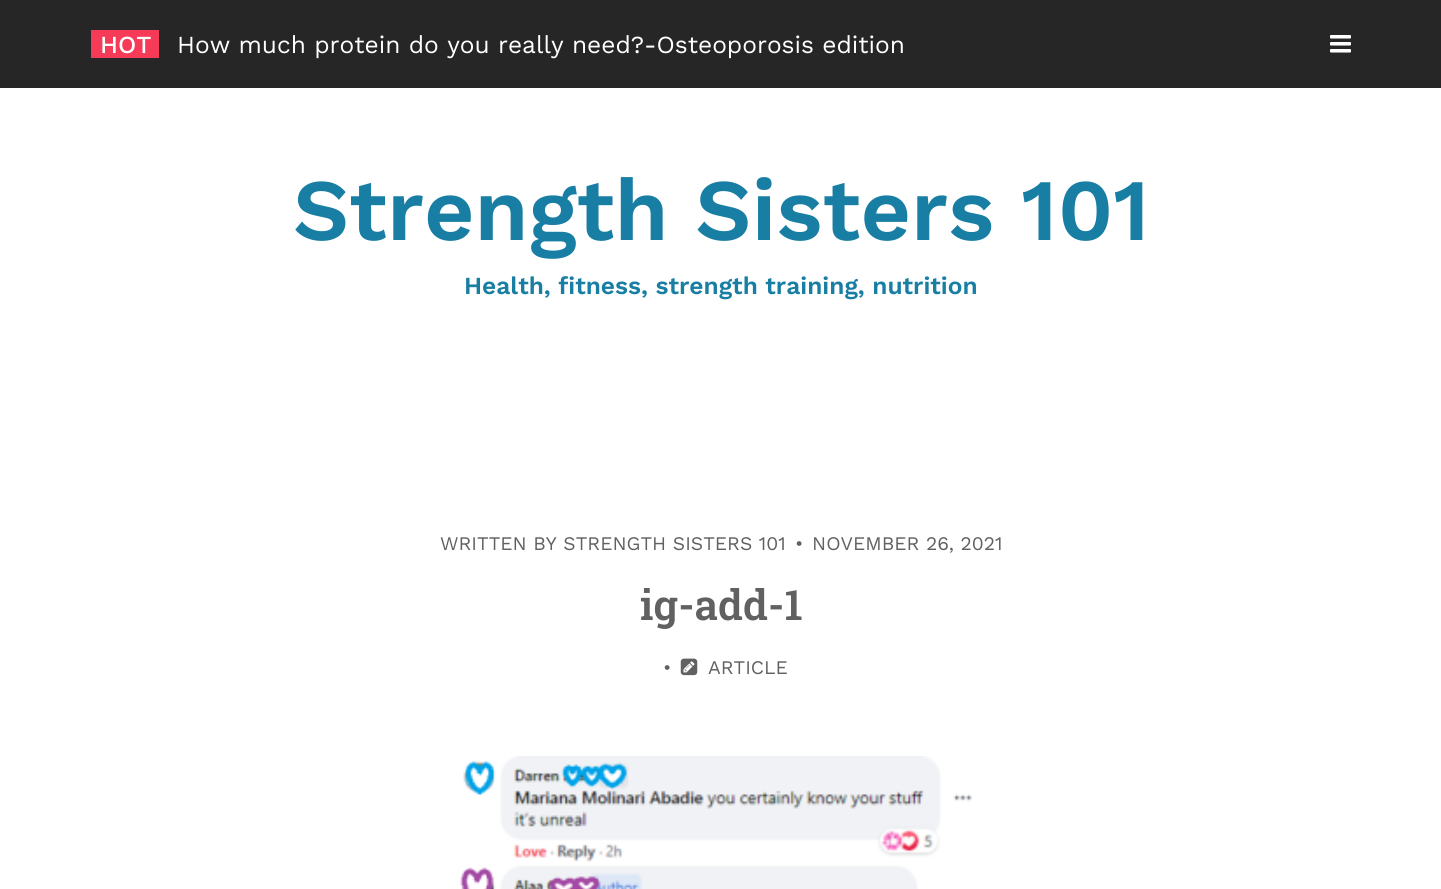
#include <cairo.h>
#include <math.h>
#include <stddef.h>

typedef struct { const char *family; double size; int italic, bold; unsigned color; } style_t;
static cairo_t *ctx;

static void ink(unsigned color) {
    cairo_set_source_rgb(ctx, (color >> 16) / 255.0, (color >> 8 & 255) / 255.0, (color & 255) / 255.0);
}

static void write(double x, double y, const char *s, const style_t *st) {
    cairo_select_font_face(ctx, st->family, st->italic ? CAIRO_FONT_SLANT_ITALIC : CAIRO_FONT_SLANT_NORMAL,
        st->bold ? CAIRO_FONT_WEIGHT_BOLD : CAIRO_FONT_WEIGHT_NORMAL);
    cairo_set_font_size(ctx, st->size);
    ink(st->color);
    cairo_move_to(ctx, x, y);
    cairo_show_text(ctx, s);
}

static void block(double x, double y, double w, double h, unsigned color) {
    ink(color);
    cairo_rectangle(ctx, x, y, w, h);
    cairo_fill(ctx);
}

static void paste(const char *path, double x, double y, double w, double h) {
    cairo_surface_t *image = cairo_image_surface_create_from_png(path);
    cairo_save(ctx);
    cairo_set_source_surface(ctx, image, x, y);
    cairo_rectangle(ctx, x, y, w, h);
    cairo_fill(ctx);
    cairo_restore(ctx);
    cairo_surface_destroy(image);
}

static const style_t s1 = {"Work Sans Medium", 24.5, 0, 0, 0xffffff};
static const style_t s2 = {"Work Sans", 24.5, 0, 0, 0xffffff};
static const style_t s3 = {"Work Sans SemiBold", 87.5, 0, 0, 0x187ea3};
static const style_t s4 = {"Work Sans SemiBold", 24.5, 0, 0, 0x187ea3};
static const style_t s5 = {"Work Sans", 19.25, 0, 0, 0x616161};
static const style_t s6 = {"Roboto Slab SemiBold", 42, 0, 0, 0x616161};

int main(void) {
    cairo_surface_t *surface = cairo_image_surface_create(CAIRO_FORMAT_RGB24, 1441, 889);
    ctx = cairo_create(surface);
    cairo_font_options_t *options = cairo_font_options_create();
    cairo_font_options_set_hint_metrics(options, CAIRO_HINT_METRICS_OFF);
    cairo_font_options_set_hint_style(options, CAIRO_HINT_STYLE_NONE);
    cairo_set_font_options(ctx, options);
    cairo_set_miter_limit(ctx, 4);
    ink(0xffffff);
    cairo_paint(ctx);
    block(0, 0, 1441, 88, 0x262626);
    block(91, 30, 68, 28, 0xf53b57);
    write(100, 53, "HOT", &s1);
    write(177, 53, "How much protein do you really need?-Osteoporosis edition", &s2);
    paste("pic1.png", 1330, 35, 21, 18);
    write(293, 240, "Strength Sisters 101", &s3);
    write(464, 294, "Health, fitness, strength training, nutrition", &s4);
    write(440, 550, "WRITTEN BY STRENGTH SISTERS 101", &s5);
    write(795, 550, "•", &s5);
    write(812, 550, "NOVEMBER 26, 2021", &s5);
    write(640, 620, "ig-add-1", &s6);
    write(663, 674, "•", &s5);
    paste("pic2.png", 680, 658, 18, 18);
    write(708, 674, "ARTICLE", &s5);
    paste("pic3.png", 460, 756, 512, 133);
    cairo_surface_write_to_png(surface, "screenshot.png");
    cairo_font_options_destroy(options);
    cairo_destroy(ctx);
    cairo_surface_destroy(surface);
    return 0;
}
